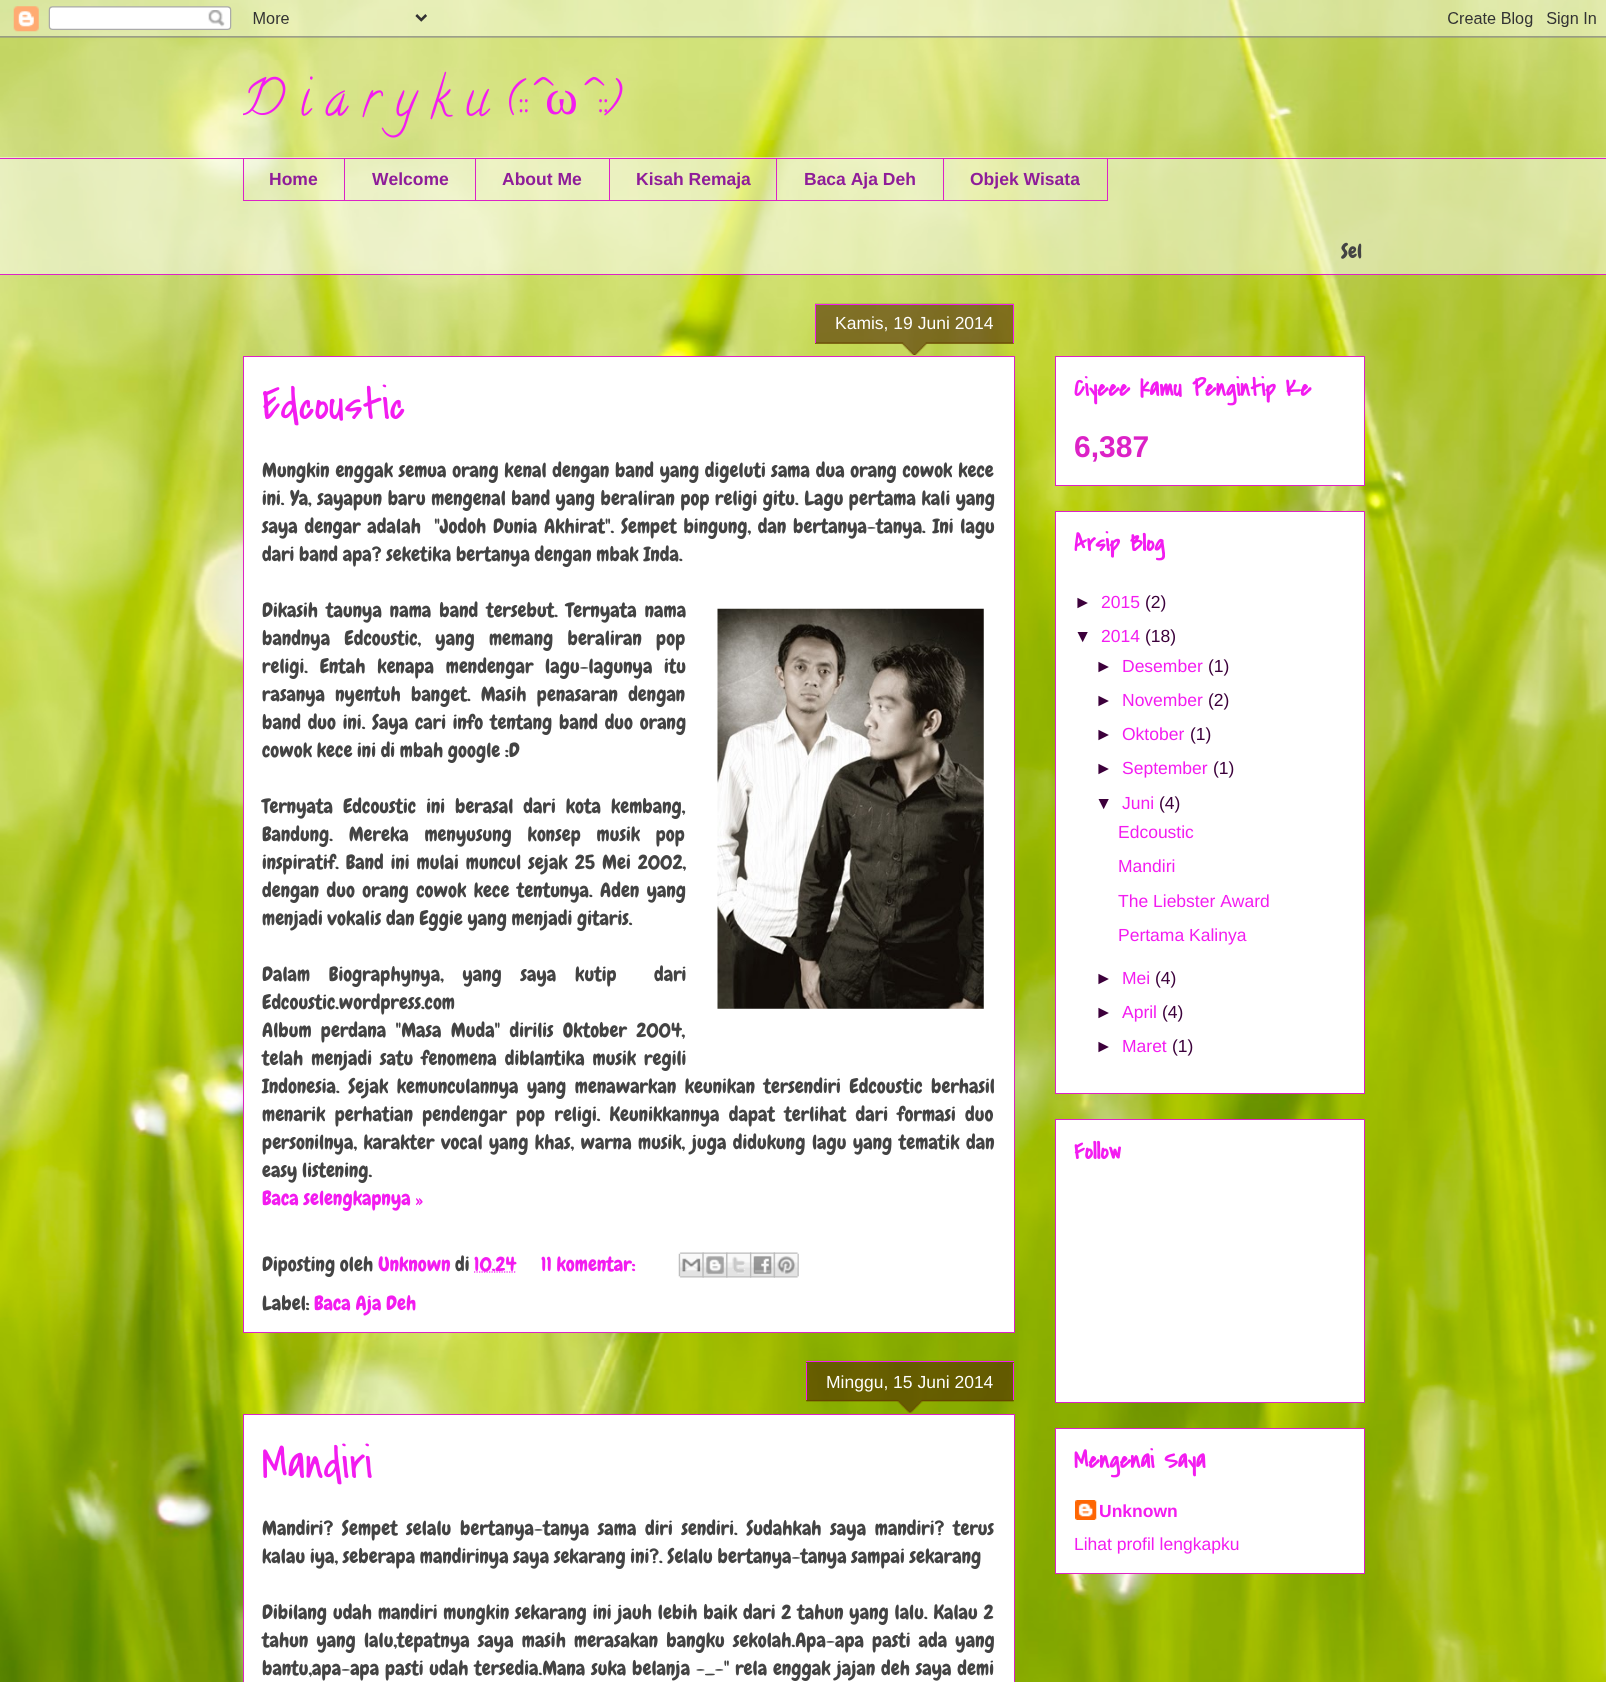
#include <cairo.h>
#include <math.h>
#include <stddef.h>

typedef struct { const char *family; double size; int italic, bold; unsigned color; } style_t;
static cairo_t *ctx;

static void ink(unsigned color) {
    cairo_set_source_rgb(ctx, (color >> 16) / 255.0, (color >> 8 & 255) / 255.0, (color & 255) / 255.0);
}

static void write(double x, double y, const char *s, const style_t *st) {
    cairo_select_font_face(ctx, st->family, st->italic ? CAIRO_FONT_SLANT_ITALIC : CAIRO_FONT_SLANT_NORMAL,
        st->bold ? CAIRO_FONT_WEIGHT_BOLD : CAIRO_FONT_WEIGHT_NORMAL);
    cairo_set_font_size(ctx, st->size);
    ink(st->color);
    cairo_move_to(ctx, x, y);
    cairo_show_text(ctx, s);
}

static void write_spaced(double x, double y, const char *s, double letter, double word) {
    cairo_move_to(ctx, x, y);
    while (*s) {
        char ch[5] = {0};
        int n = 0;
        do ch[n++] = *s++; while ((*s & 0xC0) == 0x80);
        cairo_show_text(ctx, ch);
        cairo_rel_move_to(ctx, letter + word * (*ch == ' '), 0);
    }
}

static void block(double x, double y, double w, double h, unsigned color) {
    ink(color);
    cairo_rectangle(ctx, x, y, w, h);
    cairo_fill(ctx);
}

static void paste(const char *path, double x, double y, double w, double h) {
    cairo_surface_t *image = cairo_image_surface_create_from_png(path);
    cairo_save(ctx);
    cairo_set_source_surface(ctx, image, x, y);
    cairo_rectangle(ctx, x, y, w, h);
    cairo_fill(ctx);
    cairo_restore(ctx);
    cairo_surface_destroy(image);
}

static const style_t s1 = {"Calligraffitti", 50, 0, 0, 0xf31cf0};
static const style_t s2 = {"Liberation Serif", 50, 0, 0, 0xf31cf0};
static const style_t s3 = {"Liberation Sans", 17.5, 0, 1, 0x8f1d99};
static const style_t s4 = {"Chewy", 20, 0, 0, 0x444444};
static const style_t s5 = {"Liberation Sans", 17.5, 0, 0, 0xffffff};
static const style_t s6 = {"Covered By Your Grace", 45, 0, 0, 0xf31cf0};
static const style_t s7 = {"Chewy", 20, 0, 0, 0xf31cf0};
static const style_t s8 = {"Covered By Your Grace", 25, 0, 1, 0xf31cf0};
static const style_t s9 = {"Liberation Sans", 30, 0, 1, 0xdc22c6};
static const style_t s10 = {"Liberation Sans", 17.5, 0, 0, 0x3c003b};
static const style_t s11 = {"Liberation Sans", 17.5, 0, 0, 0xf31cf0};
static const style_t s12 = {"Liberation Sans", 17.5, 0, 1, 0xf31cf0};

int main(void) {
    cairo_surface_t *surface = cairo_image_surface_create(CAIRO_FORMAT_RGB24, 1606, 1682);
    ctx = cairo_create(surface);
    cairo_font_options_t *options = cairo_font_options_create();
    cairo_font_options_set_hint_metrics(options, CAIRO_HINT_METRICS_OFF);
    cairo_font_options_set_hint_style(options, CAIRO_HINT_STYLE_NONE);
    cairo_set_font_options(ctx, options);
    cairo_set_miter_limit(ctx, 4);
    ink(0xffffff);
    cairo_paint(ctx);
    paste("pic1.png", 0, 0, 1606, 1682);
    paste("pic2.png", 0, 0, 1606, 38);
    cairo_save(ctx);
    cairo_rectangle(ctx, 243, 38, 1122, 120);
    cairo_clip(ctx);
    write(242, 114, "D i a r y k u", &s1);
    cairo_restore(ctx);
    write(503, 114, "(::^", &s1);
    write(545, 114, "ω", &s2);
    write(578, 114, "^::)", &s1);
    cairo_set_source_rgba(ctx, 1, 1, 1, 0.49);
    cairo_rectangle(ctx, 0, 157, 1606, 117);
    cairo_fill(ctx);
    block(0, 158, 1606, 1, 0xdc22c6);
    block(243, 200, 700, 1, 0xdc22c6);
    block(243, 158, 1, 43, 0xdc22c6);
    write(269, 185, "Home", &s3);
    block(344, 158, 1, 43, 0xdc22c6);
    write(372, 185, "Welcome", &s3);
    block(475, 158, 1, 43, 0xdc22c6);
    write(502, 185, "About Me", &s3);
    block(609, 158, 1, 43, 0xdc22c6);
    write(636, 185, "Kisah Remaja", &s3);
    block(776, 158, 1, 43, 0xdc22c6);
    write(804, 185, "Baca Aja Deh", &s3);
    cairo_rectangle(ctx, 943.5, 158.5, 164, 42);
    ink(0xdc22c6);
    cairo_set_line_width(ctx, 1);
    cairo_stroke(ctx);
    write(970, 185, "Objek Wisata", &s3);
    write(1341, 258, "Sel", &s4);
    block(0, 274, 1606, 1, 0xdc22c6);
    ink(0xffffff);
    cairo_rectangle(ctx, 243.5, 356.5, 771, 976);
    cairo_fill_preserve(ctx);
    ink(0xdc22c6);
    cairo_stroke(ctx);
    paste("pic3.png", 815, 303, 199, 52);
    block(815, 304, 199, 1, 0xf31cf0);
    block(1013, 305, 1, 38, 0xf31cf0);
    block(815, 305, 1, 38, 0xf31cf0);
    write(835, 329, "Kamis, 19 Juni 2014", &s5);
    write(262, 419, "Edcoustic", &s6);
    cairo_select_font_face(ctx, "Chewy", CAIRO_FONT_SLANT_NORMAL, CAIRO_FONT_WEIGHT_NORMAL);
    cairo_set_font_size(ctx, 20);
    ink(0x444444);
    write_spaced(262, 477, "Mungkin enggak semua orang kenal dengan band yang digeluti sama dua orang cowok kece", 0, 1);
    write_spaced(262, 505, "ini. Ya, sayapun baru mengenal band yang beraliran pop religi gitu. Lagu pertama kali yang", 0, 0.75);
    write_spaced(262, 533, "saya dengar adalah  \"Jodoh Dunia Akhirat\". Sempet bingung, dan bertanya-tanya. Ini lagu", 0, 2);
    write(262, 561, "dari band apa? seketika bertanya dengan mbak Inda.", &s4);
    write_spaced(262, 617, "Dikasih taunya nama band tersebut. Ternyata nama", 0, 3.25);
    write_spaced(262, 645, "bandnya Edcoustic, yang memang beraliran pop", 0, 9.5);
    write_spaced(262, 673, "religi. Entah kenapa mendengar lagu-lagunya itu", 0, 7);
    write_spaced(262, 701, "rasanya nyentuh banget. Masih penasaran dengan", 0, 5.5);
    write_spaced(262, 729, "band duo ini. Saya cari info tentang band duo orang", 0, 2);
    write(262, 757, "cowok kece ini di mbah google :D", &s4);
    paste("pic4.png", 717, 608, 267, 401);
    write_spaced(262, 813, "Ternyata Edcoustic ini berasal dari kota kembang,", 0, 5.25);
    write_spaced(262, 841, "Bandung. Mereka menyusung konsep musik pop", 0, 11);
    write_spaced(262, 869, "inspiratif. Band ini mulai muncul sejak 25 Mei 2002,", 0, 2.25);
    write_spaced(262, 897, "dengan duo orang cowok kece tentunya. Aden yang", 0, 2.75);
    write(262, 925, "menjadi vokalis dan Eggie yang menjadi gitaris.", &s4);
    write_spaced(262, 981, "Dalam Biographynya, yang saya kutip  dari", 0, 14);
    write(262, 1009, "Edcoustic.wordpress.com", &s4);
    write_spaced(262, 1037, "Album perdana \"Masa Muda\" dirilis Oktober 2004,", 0, 4.5);
    write_spaced(262, 1065, "telah menjadi satu fenomena diblantika musik regili", 0, 3.25);
    write_spaced(262, 1093, "Indonesia. Sejak kemunculannya yang menawarkan keunikan tersendiri Edcoustic berhasil", 0, 3.75);
    write_spaced(262, 1121, "menarik perhatian pendengar pop religi. Keunikkannya dapat terlihat dari formasi duo", 0, 4.5);
    write_spaced(262, 1149, "personilnya, karakter vocal yang khas, warna musik, juga didukung lagu yang tematik dan", 0, 1.75);
    write(262, 1177, "easy listening.", &s4);
    write(262, 1205, "Baca selengkapnya »", &s7);
    write(262, 1271, "Diposting oleh", &s4);
    write(378, 1271, "Unknown", &s7);
    write(455, 1271, "di", &s4);
    cairo_new_path(ctx);
    cairo_move_to(ctx, 474, 1272);
    cairo_line_to(ctx, 516, 1272);
    ink(0xf31cf0);
    cairo_set_line_width(ctx, 1.2);
    cairo_set_dash(ctx, (double[]){1.25, 1.25}, 2, 0);
    cairo_stroke(ctx);
    write(474, 1271, "10.24", &s7);
    write(541, 1271, "11 komentar:", &s7);
    paste("pic5.png", 678, 1252, 26, 26);
    paste("pic6.png", 702, 1252, 26, 26);
    paste("pic7.png", 726, 1252, 26, 26);
    paste("pic8.png", 750, 1252, 25, 26);
    paste("pic9.png", 773, 1252, 26, 26);
    write(262, 1310, "Label:", &s4);
    write(314, 1310, "Baca Aja Deh", &s7);
    ink(0xffffff);
    cairo_rectangle(ctx, 243.5, 1414.5, 771, 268);
    cairo_fill_preserve(ctx);
    ink(0xdc22c6);
    cairo_set_line_width(ctx, 1);
    cairo_set_dash(ctx, NULL, 0, 0);
    cairo_stroke(ctx);
    paste("pic10.png", 806, 1362, 208, 51);
    block(806, 1361, 208, 1, 0xf31cf0);
    block(1013, 1363, 1, 37, 0xf31cf0);
    block(806, 1363, 1, 37, 0xf31cf0);
    write(826, 1388, "Minggu, 15 Juni 2014", &s5);
    write(262, 1478, "Mandiri", &s6);
    cairo_select_font_face(ctx, "Chewy", CAIRO_FONT_SLANT_NORMAL, CAIRO_FONT_WEIGHT_NORMAL);
    cairo_set_font_size(ctx, 20);
    ink(0x444444);
    write_spaced(262, 1535, "Mandiri? Sempet selalu bertanya-tanya sama diri sendiri. Sudahkah saya mandiri? terus", 0, 4);
    write(262, 1563, "kalau iya, seberapa mandirinya saya sekarang ini?. Selalu bertanya-tanya sampai sekarang", &s4);
    write_spaced(262, 1619, "Dibilang udah mandiri mungkin sekarang ini jauh lebih baik dari 2 tahun yang lalu. Kalau 2", 0, 1.1);
    write_spaced(262, 1647, "tahun yang lalu,tepatnya saya masih merasakan bangku sekolah.Apa-apa pasti ada yang", 0, 3.4);
    write_spaced(262, 1675, "bantu,apa-apa pasti udah tersedia.Mana suka belanja -_-\" rela enggak jajan deh saya demi", 0, 1.1);
    ink(0xffffff);
    cairo_rectangle(ctx, 1055.5, 356.5, 309, 129);
    cairo_fill_preserve(ctx);
    ink(0xdc22c6);
    cairo_stroke(ctx);
    write(1074, 396, "Ciyeee kamu Pengintip Ke", &s8);
    write(1074, 457, "6,387", &s9);
    ink(0xffffff);
    cairo_rectangle(ctx, 1055.5, 511.5, 309, 582);
    cairo_fill_preserve(ctx);
    ink(0xdc22c6);
    cairo_stroke(ctx);
    write(1074, 551, "Arsip Blog", &s8);
    write(1074, 608, "►", &s10);
    write(1101, 608, "2015", &s11);
    write(1145, 608, "(2)", &s10);
    write(1074, 642, "▼", &s10);
    write(1101, 642, "2014", &s11);
    write(1145, 642, "(18)", &s10);
    write(1095, 672, "►", &s10);
    write(1122, 672, "Desember", &s11);
    write(1208, 672, "(1)", &s10);
    write(1095, 706, "►", &s10);
    write(1122, 706, "November", &s11);
    write(1208, 706, "(2)", &s10);
    write(1095, 740, "►", &s10);
    write(1122, 740, "Oktober", &s11);
    write(1190, 740, "(1)", &s10);
    write(1095, 774, "►", &s10);
    write(1122, 774, "September", &s11);
    write(1213, 774, "(1)", &s10);
    write(1095, 809, "▼", &s10);
    write(1122, 809, "Juni", &s11);
    write(1159, 809, "(4)", &s10);
    write(1118, 838, "Edcoustic", &s11);
    write(1118, 872, "Mandiri", &s11);
    write(1118, 907, "The Liebster Award", &s11);
    write(1118, 941, "Pertama Kalinya", &s11);
    write(1095, 984, "►", &s10);
    write(1122, 984, "Mei", &s11);
    write(1155, 984, "(4)", &s10);
    write(1095, 1018, "►", &s10);
    write(1122, 1018, "April", &s11);
    write(1162, 1018, "(4)", &s10);
    write(1095, 1052, "►", &s10);
    write(1122, 1052, "Maret", &s11);
    write(1172, 1052, "(1)", &s10);
    ink(0xffffff);
    cairo_rectangle(ctx, 1055.5, 1119.5, 309, 283);
    cairo_fill_preserve(ctx);
    ink(0xdc22c6);
    cairo_stroke(ctx);
    write(1074, 1159, "Follow", &s8);
    ink(0xffffff);
    cairo_rectangle(ctx, 1055.5, 1428.5, 309, 145);
    cairo_fill_preserve(ctx);
    ink(0xdc22c6);
    cairo_stroke(ctx);
    write(1074, 1468, "Mengenai Saya", &s8);
    paste("pic11.png", 1075, 1500, 22, 20);
    write(1099, 1517, "Unknown", &s12);
    write(1074, 1550, "Lihat profil lengkapku", &s11);
    cairo_surface_write_to_png(surface, "screenshot.png");
    cairo_font_options_destroy(options);
    cairo_destroy(ctx);
    cairo_surface_destroy(surface);
    return 0;
}
